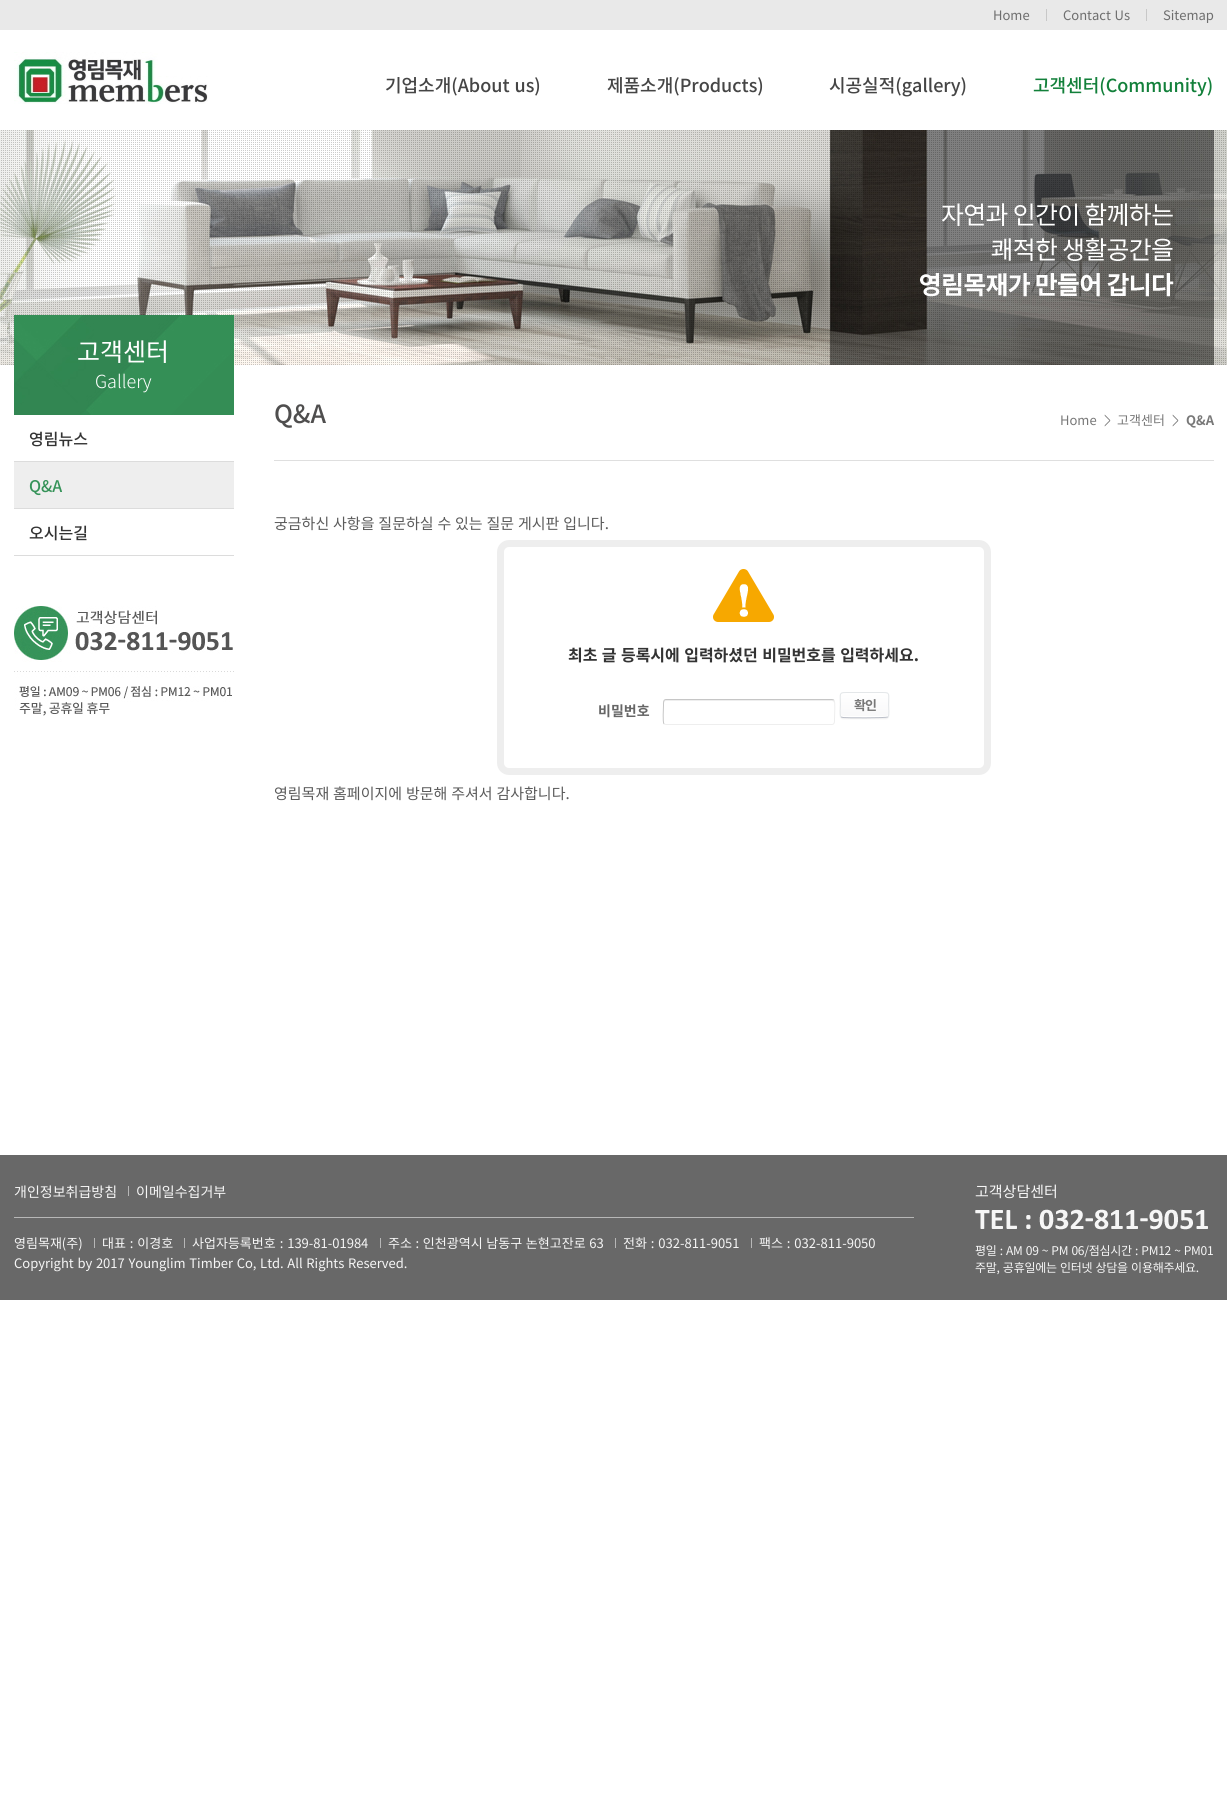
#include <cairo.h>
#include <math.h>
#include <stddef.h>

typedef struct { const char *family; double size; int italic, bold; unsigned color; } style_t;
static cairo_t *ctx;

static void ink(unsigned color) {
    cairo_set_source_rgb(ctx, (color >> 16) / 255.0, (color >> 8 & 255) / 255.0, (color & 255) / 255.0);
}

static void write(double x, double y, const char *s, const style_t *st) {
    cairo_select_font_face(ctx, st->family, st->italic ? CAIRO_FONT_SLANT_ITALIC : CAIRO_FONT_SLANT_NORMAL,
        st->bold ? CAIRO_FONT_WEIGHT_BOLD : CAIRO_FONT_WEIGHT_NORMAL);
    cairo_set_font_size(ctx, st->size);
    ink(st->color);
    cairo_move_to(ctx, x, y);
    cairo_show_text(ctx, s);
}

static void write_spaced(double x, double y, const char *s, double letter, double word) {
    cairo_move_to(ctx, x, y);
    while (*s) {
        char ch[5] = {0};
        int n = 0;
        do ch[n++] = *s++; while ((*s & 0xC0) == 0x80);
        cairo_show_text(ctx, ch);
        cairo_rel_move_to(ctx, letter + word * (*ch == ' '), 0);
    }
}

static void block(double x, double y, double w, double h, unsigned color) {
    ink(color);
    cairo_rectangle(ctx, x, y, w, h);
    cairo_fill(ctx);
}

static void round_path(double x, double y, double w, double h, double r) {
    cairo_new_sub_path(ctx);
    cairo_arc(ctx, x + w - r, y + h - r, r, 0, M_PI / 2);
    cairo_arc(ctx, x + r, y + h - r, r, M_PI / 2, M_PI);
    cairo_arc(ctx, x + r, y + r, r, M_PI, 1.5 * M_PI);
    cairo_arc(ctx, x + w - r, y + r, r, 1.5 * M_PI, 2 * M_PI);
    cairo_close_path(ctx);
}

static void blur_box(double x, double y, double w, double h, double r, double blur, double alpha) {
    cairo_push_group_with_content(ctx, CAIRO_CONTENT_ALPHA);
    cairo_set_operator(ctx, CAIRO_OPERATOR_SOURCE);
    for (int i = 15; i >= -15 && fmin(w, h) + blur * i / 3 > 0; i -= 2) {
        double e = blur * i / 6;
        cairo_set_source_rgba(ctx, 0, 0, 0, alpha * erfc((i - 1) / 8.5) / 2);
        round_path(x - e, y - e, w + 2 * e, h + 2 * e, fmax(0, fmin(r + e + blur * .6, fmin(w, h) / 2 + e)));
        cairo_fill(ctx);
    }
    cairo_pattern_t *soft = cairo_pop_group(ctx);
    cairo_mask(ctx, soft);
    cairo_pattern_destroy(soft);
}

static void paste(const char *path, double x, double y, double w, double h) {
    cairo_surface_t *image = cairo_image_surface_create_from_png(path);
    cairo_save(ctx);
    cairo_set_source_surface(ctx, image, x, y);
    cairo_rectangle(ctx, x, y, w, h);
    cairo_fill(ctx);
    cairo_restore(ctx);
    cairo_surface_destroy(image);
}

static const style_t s1 = {"Noto Sans KR", 13, 0, 0, 0x6e6e6e};
static const style_t s2 = {"Noto Sans KR Medium", 18, 0, 0, 0x454545};
static const style_t s3 = {"Noto Sans KR Medium", 18, 0, 0, 0x12803a};
static const style_t s4 = {"Noto Sans KR", 25, 0, 0, 0xffffff};
static const style_t s5 = {"Noto Sans KR Light", 18, 0, 0, 0xffffff};
static const style_t s6 = {"Noto Sans KR Medium", 16, 0, 0, 0x333333};
static const style_t s7 = {"Noto Sans KR Medium", 16, 0, 0, 0x369359};
static const style_t s8 = {"Noto Sans KR Medium", 25, 0, 0, 0x4f4e4e};
static const style_t s9 = {"Noto Sans KR", 13, 0, 0, 0x787878};
static const style_t s10 = {"NanumGothic", 13, 0, 0, 0x787878};
static const style_t s11 = {"Noto Sans KR", 13, 0, 1, 0x787878};
static const style_t s12 = {"Noto Sans KR", 14, 0, 1, 0x666666};
static const style_t s13 = {"Noto Sans KR", 14, 0, 0, 0xf6f6f6};
static const style_t s14 = {"Noto Sans KR", 13, 0, 0, 0xf6f6f6};
static const style_t s15 = {"Noto Sans KR", 15, 0, 0, 0xf6f6f6};

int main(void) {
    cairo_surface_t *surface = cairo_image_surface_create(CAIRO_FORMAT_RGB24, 1227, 1800);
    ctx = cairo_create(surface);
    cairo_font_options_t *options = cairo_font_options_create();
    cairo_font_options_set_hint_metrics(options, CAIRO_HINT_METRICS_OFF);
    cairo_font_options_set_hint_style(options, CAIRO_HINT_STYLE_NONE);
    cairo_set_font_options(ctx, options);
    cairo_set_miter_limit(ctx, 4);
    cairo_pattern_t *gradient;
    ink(0xffffff);
    cairo_paint(ctx);
    block(0, 0, 1227, 30, 0xe9e9e9);
    write(993, 20, "Home", &s1);
    block(1046, 9, 1, 12, 0xc8c8c8);
    ink(0x6e6e6e);
    write_spaced(1063, 20, "Contact Us", 0, 0.75);
    block(1146, 9, 1, 12, 0xc8c8c8);
    write(1163, 20, "Sitemap", &s1);
    paste("pic1.png", 14, 52, 194, 52);
    cairo_select_font_face(ctx, "Noto Sans KR Medium", CAIRO_FONT_SLANT_NORMAL, CAIRO_FONT_WEIGHT_NORMAL);
    cairo_set_font_size(ctx, 18);
    ink(0x454545);
    write_spaced(385, 92, "기업소개(About us)", 0, 1);
    write(607, 92, "제품소개(Products)", &s2);
    write(829, 92, "시공실적(gallery)", &s2);
    write(1033, 92, "고객센터(Community)", &s3);
    paste("pic2.png", 0, 130, 1227, 235);
    paste("pic3.png", 14, 315, 220, 100);
    write(77, 361, "고객센터", &s4);
    write(95, 388, "Gallery", &s5);
    block(14, 461, 220, 1, 0xdcdcdc);
    write(29, 445, "영림뉴스", &s6);
    block(14, 462, 220, 46, 0xeeeeee);
    block(14, 508, 220, 1, 0xdcdcdc);
    write(29, 492, "Q&A", &s7);
    block(14, 555, 220, 1, 0xdcdcdc);
    write(29, 539, "오시는길", &s6);
    paste("pic4.png", 14, 606, 220, 110);
    block(274, 460, 940, 1, 0xdfdfdf);
    write(274, 423, "Q&A", &s8);
    write(1060, 425, "Home", &s9);
    write(1104, 425, ">", &s10);
    write(1117, 425, "고객센터", &s9);
    write(1172, 425, ">", &s10);
    write(1186, 425, "Q&A", &s11);
    cairo_select_font_face(ctx, "Noto Sans KR", CAIRO_FONT_SLANT_NORMAL, CAIRO_FONT_WEIGHT_NORMAL);
    cairo_set_font_size(ctx, 15);
    ink(0x5b5b5b);
    write_spaced(274, 529, "궁금하신 사항을 질문하실 수 있는 질문 게시판 입니다.", 0, 0.5);
    paste("pic5.png", 713, 569, 61, 53);
    round_path(500.5, 543.5, 487, 228, 8.5);
    ink(0xeeeeee);
    cairo_set_line_width(ctx, 7);
    cairo_stroke(ctx);
    cairo_select_font_face(ctx, "Noto Sans KR", CAIRO_FONT_SLANT_NORMAL, CAIRO_FONT_WEIGHT_BOLD);
    cairo_set_font_size(ctx, 16);
    ink(0x333333);
    write_spaced(568, 661, "최초 글 등록시에 입력하셨던 비밀번호를 입력하세요.", 0, 0.75);
    write(598, 716, "비밀번호", &s12);
    ink(0xeeeeee);
    cairo_new_path(ctx);
    cairo_move_to(ctx, 666, 701);
    cairo_line_to(ctx, 832, 701);
    cairo_curve_to(ctx, 833, 701, 834, 702, 834, 703);
    cairo_curve_to(ctx, 834, 702, 834, 700, 832, 700);
    cairo_line_to(ctx, 666, 700);
    cairo_curve_to(ctx, 664, 700, 664, 702, 664, 703);
    cairo_curve_to(ctx, 664, 702, 665, 701, 666, 701);
    cairo_close_path(ctx);
    cairo_fill(ctx);
    cairo_new_path(ctx);
    cairo_move_to(ctx, 834, 700);
    cairo_curve_to(ctx, 835.5, 702, 834.5, 715.5, 834.5, 718.5);
    cairo_curve_to(ctx, 834.5, 720.5, 835, 724.5, 832, 724.5);
    cairo_line_to(ctx, 666, 724.5);
    cairo_line_to(ctx, 664, 724);
    cairo_set_line_width(ctx, 1);
    cairo_stroke(ctx);
    cairo_new_path(ctx);
    cairo_move_to(ctx, 664, 724);
    cairo_curve_to(ctx, 662.5, 722, 663.5, 708.5, 663.5, 705.5);
    cairo_curve_to(ctx, 663.5, 703.5, 663, 699.5, 666, 699.5);
    cairo_line_to(ctx, 832, 699.5);
    cairo_line_to(ctx, 834, 700);
    ink(0xc6c6c6);
    cairo_stroke(ctx);
    ink(0xf0f0f0);
    blur_box(840, 693, 49, 26, 3, 0.5, 1);
    cairo_save(ctx);
    round_path(840, 692, 49, 26, 3);
    cairo_clip(ctx);
    gradient = cairo_pattern_create_linear(865, 669, 865, 693);
    cairo_pattern_add_color_stop_rgba(gradient, 0, 1, 1, 1, 1);
    cairo_pattern_add_color_stop_rgba(gradient, 1, 0.973, 0.973, 0.976, 1);
    cairo_set_source(ctx, gradient);
    cairo_pattern_destroy(gradient);
    cairo_rectangle(ctx, 840, 692, 49, 1);
    cairo_fill(ctx);
    gradient = cairo_pattern_create_linear(865, 693, 865, 717);
    cairo_pattern_add_color_stop_rgba(gradient, 0, 1, 1, 1, 1);
    cairo_pattern_add_color_stop_rgba(gradient, 1, 0.973, 0.973, 0.976, 1);
    cairo_set_source(ctx, gradient);
    cairo_pattern_destroy(gradient);
    cairo_rectangle(ctx, 840, 693, 49, 24);
    cairo_fill(ctx);
    gradient = cairo_pattern_create_linear(865, 717, 865, 741);
    cairo_pattern_add_color_stop_rgba(gradient, 0, 1, 1, 1, 1);
    cairo_pattern_add_color_stop_rgba(gradient, 1, 0.973, 0.973, 0.976, 1);
    cairo_set_source(ctx, gradient);
    cairo_pattern_destroy(gradient);
    cairo_rectangle(ctx, 840, 717, 49, 1);
    cairo_fill(ctx);
    cairo_restore(ctx);
    ink(0xffffff);
    cairo_new_path(ctx);
    cairo_move_to(ctx, 841, 714);
    cairo_curve_to(ctx, 841, 719, 846, 717, 850, 717);
    cairo_line_to(ctx, 879, 717);
    cairo_curve_to(ctx, 883, 717, 888, 719, 888, 714);
    cairo_curve_to(ctx, 888, 715, 887, 716, 886, 716);
    cairo_line_to(ctx, 843, 716);
    cairo_curve_to(ctx, 842, 716, 841, 715, 841, 714);
    cairo_close_path(ctx);
    cairo_fill(ctx);
    cairo_new_path(ctx);
    cairo_move_to(ctx, 888, 717);
    cairo_curve_to(ctx, 886.5, 718, 847, 718, 843, 717.5);
    cairo_line_to(ctx, 841, 717);
    ink(0xbbbfc8);
    cairo_stroke(ctx);
    cairo_new_path(ctx);
    cairo_move_to(ctx, 841, 717);
    cairo_curve_to(ctx, 839.5, 715, 840.5, 707.5, 840.5, 705);
    cairo_curve_to(ctx, 840.5, 692, 838, 692.5, 850, 692.5);
    cairo_line_to(ctx, 879, 692.5);
    cairo_curve_to(ctx, 891, 692.5, 888.5, 692, 888.5, 705);
    cairo_curve_to(ctx, 888.5, 707.5, 889.5, 715, 888, 717);
    ink(0xe4e7e9);
    cairo_stroke(ctx);
    cairo_set_font_size(ctx, 13);
    ink(0x787878);
    write_spaced(854, 710, "확인", -1, 0);
    cairo_select_font_face(ctx, "Noto Sans KR", CAIRO_FONT_SLANT_NORMAL, CAIRO_FONT_WEIGHT_NORMAL);
    cairo_set_font_size(ctx, 15);
    ink(0x5b5b5b);
    write_spaced(274, 799, "영림목재 홈페이지에 방문해 주셔서 감사합니다.", 0, 0.5);
    block(0, 1155, 1227, 145, 0x686868);
    block(14, 1217, 900, 1, 0xb7b7b7);
    write(14, 1197, "개인정보취급방침", &s13);
    block(128, 1186, 1, 10, 0xb7b7b7);
    write(136, 1197, "이메일수집거부", &s13);
    write(14, 1248, "영림목재(주)", &s14);
    block(94, 1238, 1, 10, 0xb7b7b7);
    ink(0xf6f6f6);
    write_spaced(102, 1248, "대표 : 이경호", 0, 1);
    block(184, 1238, 1, 10, 0xb7b7b7);
    ink(0xf6f6f6);
    write_spaced(192, 1248, "사업자등록번호 : 139-81-01984", 0, 1);
    block(380, 1238, 1, 10, 0xb7b7b7);
    ink(0xf6f6f6);
    write_spaced(388, 1248, "주소 : 인천광역시 남동구 논현고잔로 63", 0, 0.75);
    block(615, 1238, 1, 10, 0xb7b7b7);
    ink(0xf6f6f6);
    write_spaced(623, 1248, "전화 : 032-811-9051", 0, 1);
    block(751, 1238, 1, 10, 0xb7b7b7);
    ink(0xf6f6f6);
    write_spaced(759, 1248, "팩스 : 032-811-9050", 0, 1);
    write_spaced(14, 1268, "Copyright by 2017 Younglim Timber Co, Ltd. All Rights Reserved.", 0, 0.75);
    write(975, 1197, "고객상담센터", &s15);
    paste("pic6.png", 975, 1209, 233, 21);
    cairo_set_font_size(ctx, 12);
    write_spaced(975, 1255, "평일 : AM 09 ~ PM 06/점심시간 : PM12 ~ PM01", -0.25, 0.75);
    write_spaced(975, 1272, "주말, 공휴일에는 인터넷 상담을 이용해주세요.", -0.25, 0.75);
    cairo_surface_write_to_png(surface, "screenshot.png");
    cairo_font_options_destroy(options);
    cairo_destroy(ctx);
    cairo_surface_destroy(surface);
    return 0;
}
